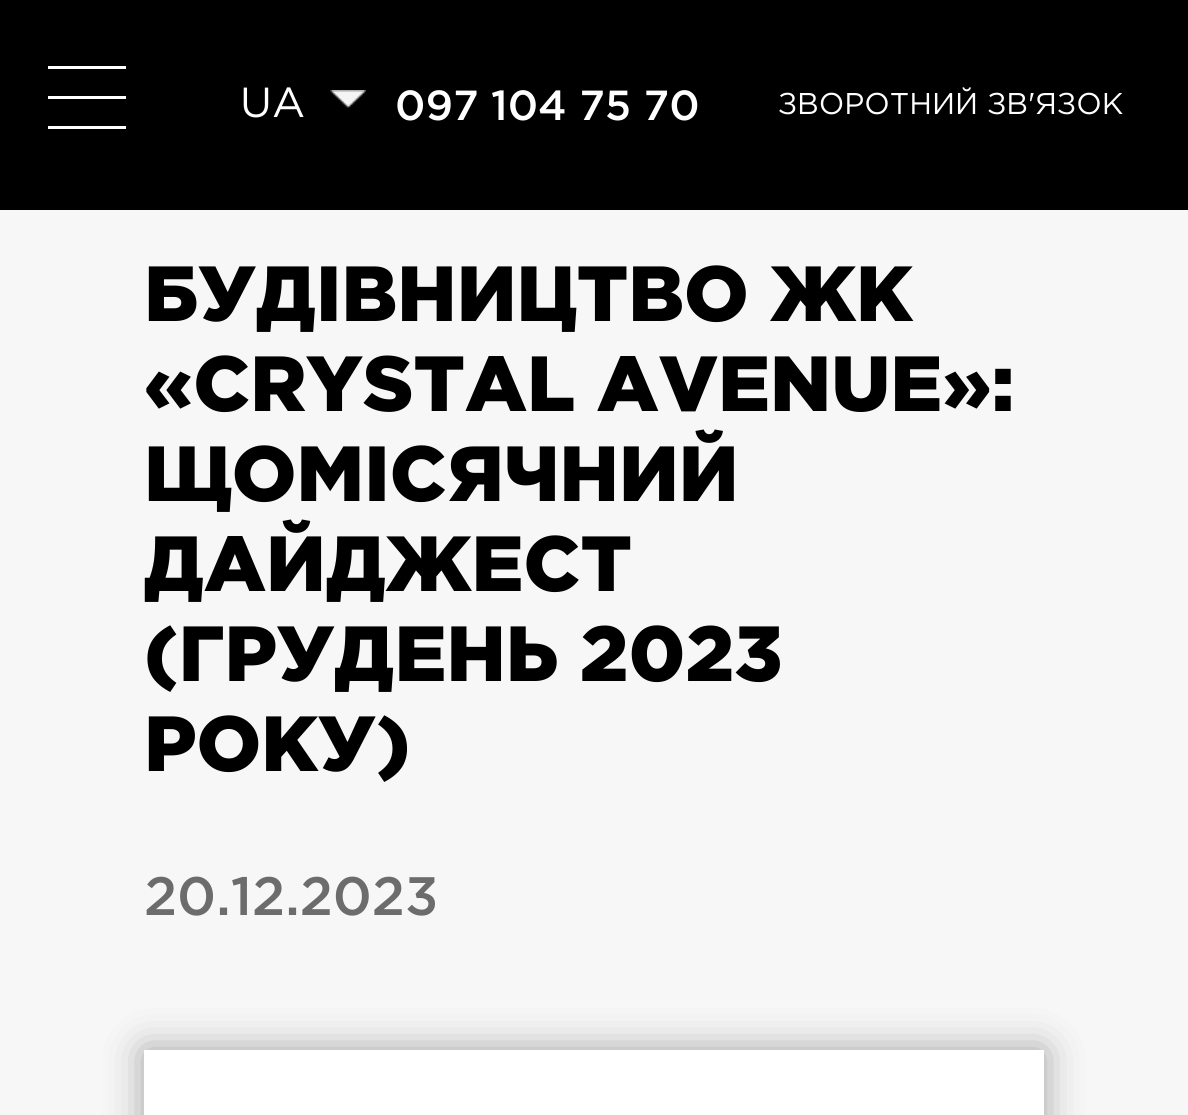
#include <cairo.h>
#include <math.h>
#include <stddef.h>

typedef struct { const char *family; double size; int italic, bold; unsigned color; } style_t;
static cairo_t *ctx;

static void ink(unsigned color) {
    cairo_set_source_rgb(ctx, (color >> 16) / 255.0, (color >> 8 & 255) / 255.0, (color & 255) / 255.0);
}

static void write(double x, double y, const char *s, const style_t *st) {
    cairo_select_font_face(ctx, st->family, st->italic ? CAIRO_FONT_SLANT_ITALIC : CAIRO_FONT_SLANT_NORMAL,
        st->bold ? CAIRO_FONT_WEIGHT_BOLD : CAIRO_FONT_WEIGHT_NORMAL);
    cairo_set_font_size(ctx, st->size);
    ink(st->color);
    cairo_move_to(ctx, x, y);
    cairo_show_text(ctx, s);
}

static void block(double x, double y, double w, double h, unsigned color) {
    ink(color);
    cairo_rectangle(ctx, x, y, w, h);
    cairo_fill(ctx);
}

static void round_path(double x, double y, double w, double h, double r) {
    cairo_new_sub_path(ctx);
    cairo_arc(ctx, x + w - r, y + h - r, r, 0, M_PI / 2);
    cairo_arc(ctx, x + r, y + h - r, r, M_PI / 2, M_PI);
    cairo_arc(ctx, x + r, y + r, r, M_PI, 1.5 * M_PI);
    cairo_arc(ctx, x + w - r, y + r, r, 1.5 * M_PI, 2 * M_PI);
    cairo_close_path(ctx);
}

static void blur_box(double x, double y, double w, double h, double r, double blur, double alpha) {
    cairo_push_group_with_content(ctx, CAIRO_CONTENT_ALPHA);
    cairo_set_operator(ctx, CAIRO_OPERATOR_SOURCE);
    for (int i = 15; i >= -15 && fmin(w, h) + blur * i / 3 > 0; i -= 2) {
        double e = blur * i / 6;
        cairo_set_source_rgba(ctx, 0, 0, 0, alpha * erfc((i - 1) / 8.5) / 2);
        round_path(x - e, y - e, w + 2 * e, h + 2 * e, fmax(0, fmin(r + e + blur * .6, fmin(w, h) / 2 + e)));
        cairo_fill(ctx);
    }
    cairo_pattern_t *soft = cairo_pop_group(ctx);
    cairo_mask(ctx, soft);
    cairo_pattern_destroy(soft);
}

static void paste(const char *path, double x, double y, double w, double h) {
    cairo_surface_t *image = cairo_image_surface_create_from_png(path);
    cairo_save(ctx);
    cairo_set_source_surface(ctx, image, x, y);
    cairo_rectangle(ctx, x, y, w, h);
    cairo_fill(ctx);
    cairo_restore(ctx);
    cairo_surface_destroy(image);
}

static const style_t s1 = {"Gotham", 42, 0, 0, 0xffffff};
static const style_t s2 = {"Gotham Medium", 42, 0, 0, 0xffffff};
static const style_t s3 = {"Gotham", 30, 0, 0, 0xffffff};
static const style_t s4 = {"Gotham Black", 78, 0, 0, 0x000000};
static const style_t s5 = {"Gotham Medium", 54, 0, 0, 0x6c6c6c};

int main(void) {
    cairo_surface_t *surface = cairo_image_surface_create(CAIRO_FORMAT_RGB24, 1188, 1115);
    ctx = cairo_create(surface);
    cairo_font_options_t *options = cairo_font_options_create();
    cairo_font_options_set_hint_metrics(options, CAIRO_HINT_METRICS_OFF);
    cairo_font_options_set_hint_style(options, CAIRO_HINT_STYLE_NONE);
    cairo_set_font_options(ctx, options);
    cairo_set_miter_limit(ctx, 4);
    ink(0xf7f7f7);
    cairo_paint(ctx);
    block(0, 0, 1188, 210, 0x000000);
    block(48, 66, 78, 3, 0xffffff);
    block(48, 96, 78, 3, 0xffffff);
    block(48, 126, 78, 3, 0xffffff);
    write(240, 117, "UA", &s1);
    paste("pic1.png", 330, 90, 36, 18);
    write(395, 120, "097 104 75 70", &s2);
    write(778, 114, "ЗВОРОТНИЙ ЗВ'ЯЗОК", &s3);
    write(144, 321, "БУДІВНИЦТВО ЖК", &s4);
    write(144, 411, "«CRYSTAL AVENUE»:", &s4);
    write(144, 501, "ЩОМІСЯЧНИЙ", &s4);
    write(144, 591, "ДАЙДЖЕСТ", &s4);
    write(144, 681, "(ГРУДЕНЬ 2023", &s4);
    write(144, 771, "РОКУ)", &s4);
    write(144, 915, "20.12.2023", &s5);
    ink(0x0a0a0a);
    blur_box(144, 1050, 900, 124, 0, 19.5, 0.36);
    block(144, 1050, 900, 65, 0xffffff);
    cairo_surface_write_to_png(surface, "screenshot.png");
    cairo_font_options_destroy(options);
    cairo_destroy(ctx);
    cairo_surface_destroy(surface);
    return 0;
}
